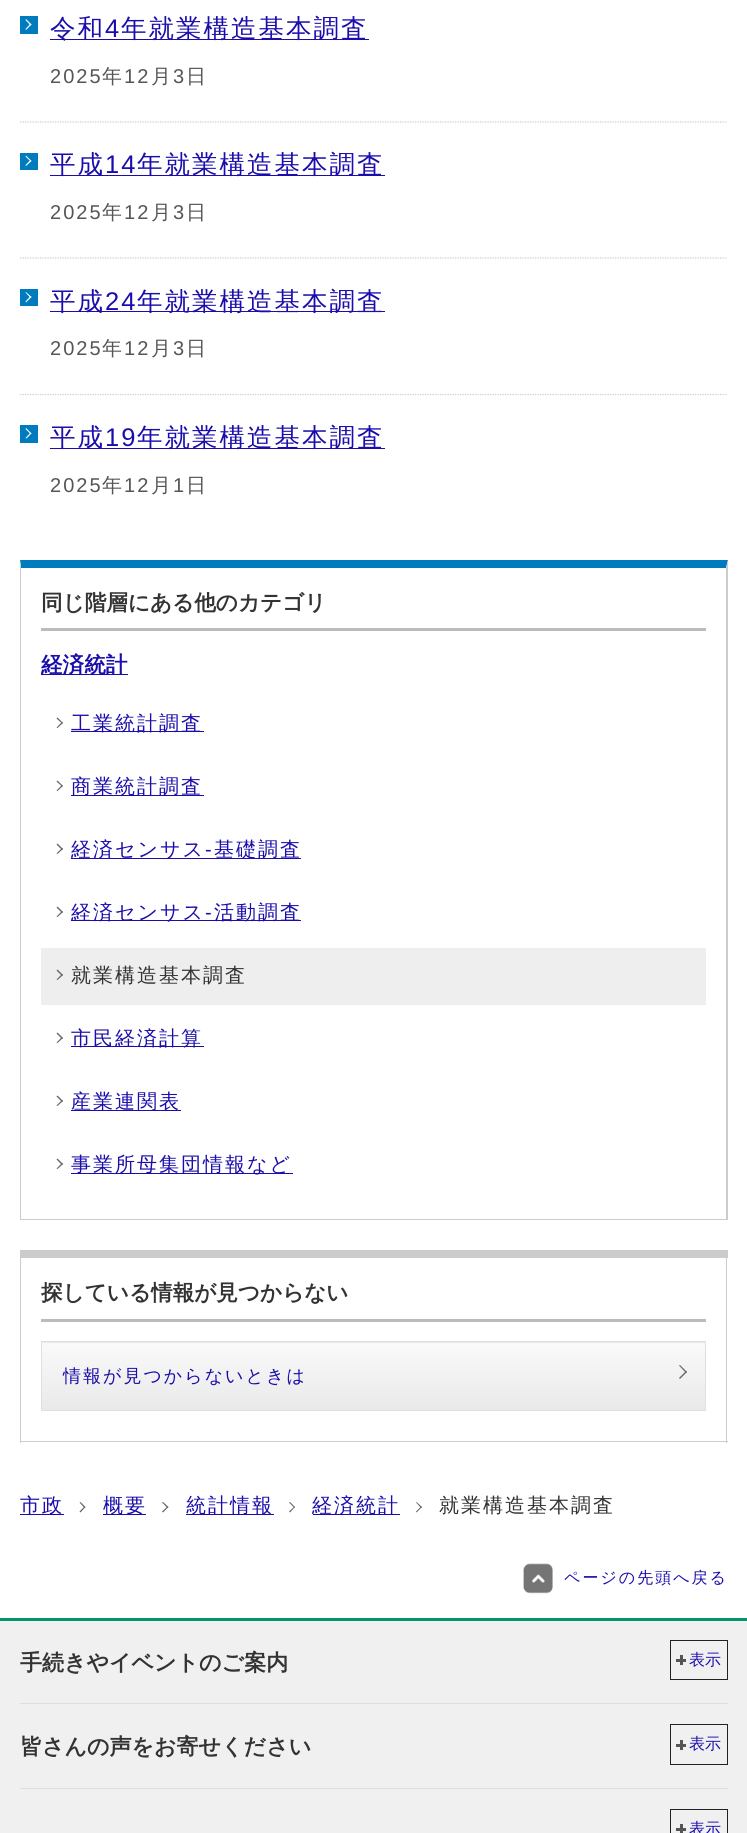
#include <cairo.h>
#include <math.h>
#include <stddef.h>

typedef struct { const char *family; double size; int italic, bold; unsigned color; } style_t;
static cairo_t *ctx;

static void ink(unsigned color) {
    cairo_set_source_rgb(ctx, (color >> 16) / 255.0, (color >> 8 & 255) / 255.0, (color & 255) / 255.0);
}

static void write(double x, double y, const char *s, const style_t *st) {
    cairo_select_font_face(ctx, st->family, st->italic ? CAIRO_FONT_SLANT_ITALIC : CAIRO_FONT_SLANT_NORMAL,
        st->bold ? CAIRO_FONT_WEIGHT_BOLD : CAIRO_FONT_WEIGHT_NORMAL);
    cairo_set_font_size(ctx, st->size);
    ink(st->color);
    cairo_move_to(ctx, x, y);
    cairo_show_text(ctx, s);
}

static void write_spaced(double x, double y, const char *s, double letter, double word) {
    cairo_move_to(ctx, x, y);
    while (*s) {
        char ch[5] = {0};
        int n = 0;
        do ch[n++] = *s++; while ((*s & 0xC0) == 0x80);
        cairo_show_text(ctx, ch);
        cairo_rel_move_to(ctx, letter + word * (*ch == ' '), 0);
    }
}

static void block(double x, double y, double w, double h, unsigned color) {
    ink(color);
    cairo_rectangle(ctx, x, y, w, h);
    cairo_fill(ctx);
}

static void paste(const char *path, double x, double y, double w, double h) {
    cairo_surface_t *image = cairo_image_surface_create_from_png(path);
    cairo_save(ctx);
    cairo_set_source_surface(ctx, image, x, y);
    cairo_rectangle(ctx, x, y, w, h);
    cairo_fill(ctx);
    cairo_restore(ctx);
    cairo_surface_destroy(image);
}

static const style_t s1 = {"WenQuanYi Zen Hei", 21.6, 0, 1, 0x333333};
static const style_t s2 = {"WenQuanYi Zen Hei", 21.6, 0, 1, 0x1a0dab};
static const style_t s3 = {"WenQuanYi Zen Hei", 22, 0, 1, 0x333333};
static const style_t s4 = {"WenQuanYi Zen Hei Medium", 16, 0, 0, 0x1a0dab};

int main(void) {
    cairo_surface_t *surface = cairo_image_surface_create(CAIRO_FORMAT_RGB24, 747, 1833);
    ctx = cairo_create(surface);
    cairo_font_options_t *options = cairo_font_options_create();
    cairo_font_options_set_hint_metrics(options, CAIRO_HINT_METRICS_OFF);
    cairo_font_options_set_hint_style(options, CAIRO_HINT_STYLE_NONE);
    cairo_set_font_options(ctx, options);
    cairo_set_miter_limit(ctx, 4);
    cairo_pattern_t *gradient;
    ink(0xffffff);
    cairo_paint(ctx);
    block(20, 16, 18, 18, 0x007cbe);
    block(50, 39, 319, 1, 0x1a0dab);
    cairo_select_font_face(ctx, "WenQuanYi Zen Hei Medium", CAIRO_FONT_SLANT_NORMAL, CAIRO_FONT_WEIGHT_NORMAL);
    cairo_set_font_size(ctx, 25.5);
    write_spaced(50, 37, "令和", 2, 0);
    cairo_select_font_face(ctx, "Liberation Sans", CAIRO_FONT_SLANT_NORMAL, CAIRO_FONT_WEIGHT_NORMAL);
    write_spaced(105, 37, "4", 2, 0);
    cairo_select_font_face(ctx, "WenQuanYi Zen Hei Medium", CAIRO_FONT_SLANT_NORMAL, CAIRO_FONT_WEIGHT_NORMAL);
    write_spaced(121, 37, "年就業構造基本調査", 2, 0);
    ink(0xffffff);
    cairo_new_path(ctx);
    cairo_move_to(ctx, 25.5, 20);
    cairo_line_to(ctx, 26, 19);
    cairo_line_to(ctx, 31.5, 24.5);
    cairo_line_to(ctx, 30.5, 25.5);
    cairo_close_path(ctx);
    cairo_fill(ctx);
    cairo_new_path(ctx);
    cairo_move_to(ctx, 25.5, 29);
    cairo_line_to(ctx, 30.5, 23.5);
    cairo_line_to(ctx, 31.5, 24.5);
    cairo_line_to(ctx, 26, 30);
    cairo_close_path(ctx);
    cairo_fill(ctx);
    cairo_select_font_face(ctx, "Liberation Sans", CAIRO_FONT_SLANT_NORMAL, CAIRO_FONT_WEIGHT_NORMAL);
    cairo_set_font_size(ctx, 20);
    ink(0x555555);
    write_spaced(50, 83, "2025", 2, 0);
    cairo_select_font_face(ctx, "WenQuanYi Zen Hei Medium", CAIRO_FONT_SLANT_NORMAL, CAIRO_FONT_WEIGHT_NORMAL);
    write_spaced(102, 83, "年", 2, 0);
    cairo_select_font_face(ctx, "Liberation Sans", CAIRO_FONT_SLANT_NORMAL, CAIRO_FONT_WEIGHT_NORMAL);
    write_spaced(124, 83, "12", 2, 0);
    cairo_select_font_face(ctx, "WenQuanYi Zen Hei Medium", CAIRO_FONT_SLANT_NORMAL, CAIRO_FONT_WEIGHT_NORMAL);
    write_spaced(151, 83, "月", 2, 0);
    cairo_select_font_face(ctx, "Liberation Sans", CAIRO_FONT_SLANT_NORMAL, CAIRO_FONT_WEIGHT_NORMAL);
    write_spaced(173, 83, "3", 2, 0);
    cairo_select_font_face(ctx, "WenQuanYi Zen Hei Medium", CAIRO_FONT_SLANT_NORMAL, CAIRO_FONT_WEIGHT_NORMAL);
    write_spaced(186, 83, "日", 2, 0);
    cairo_new_path(ctx);
    cairo_move_to(ctx, 20, 122);
    cairo_line_to(ctx, 727.5, 122);
    ink(0xcccccc);
    cairo_set_line_width(ctx, 1.2);
    cairo_set_dash(ctx, (double[]){1.25, 1.25}, 2, 0);
    cairo_stroke(ctx);
    block(20, 153, 18, 17, 0x007cbe);
    block(50, 175, 335, 1, 0x1a0dab);
    cairo_set_font_size(ctx, 25.5);
    write_spaced(50, 173, "平成", 2, 0);
    cairo_select_font_face(ctx, "Liberation Sans", CAIRO_FONT_SLANT_NORMAL, CAIRO_FONT_WEIGHT_NORMAL);
    write_spaced(105, 173, "14", 2, 0);
    cairo_select_font_face(ctx, "WenQuanYi Zen Hei Medium", CAIRO_FONT_SLANT_NORMAL, CAIRO_FONT_WEIGHT_NORMAL);
    write_spaced(137, 173, "年就業構造基本調査", 2, 0);
    ink(0xffffff);
    cairo_new_path(ctx);
    cairo_move_to(ctx, 25.5, 156.5);
    cairo_line_to(ctx, 26, 155.5);
    cairo_line_to(ctx, 31.5, 161);
    cairo_line_to(ctx, 30.5, 161.5);
    cairo_close_path(ctx);
    cairo_fill(ctx);
    cairo_new_path(ctx);
    cairo_move_to(ctx, 25.5, 165);
    cairo_line_to(ctx, 30.5, 160);
    cairo_line_to(ctx, 31.5, 161);
    cairo_line_to(ctx, 26, 166);
    cairo_close_path(ctx);
    cairo_fill(ctx);
    cairo_select_font_face(ctx, "Liberation Sans", CAIRO_FONT_SLANT_NORMAL, CAIRO_FONT_WEIGHT_NORMAL);
    cairo_set_font_size(ctx, 20);
    ink(0x555555);
    write_spaced(50, 219, "2025", 2, 0);
    cairo_select_font_face(ctx, "WenQuanYi Zen Hei Medium", CAIRO_FONT_SLANT_NORMAL, CAIRO_FONT_WEIGHT_NORMAL);
    write_spaced(102, 219, "年", 2, 0);
    cairo_select_font_face(ctx, "Liberation Sans", CAIRO_FONT_SLANT_NORMAL, CAIRO_FONT_WEIGHT_NORMAL);
    write_spaced(124, 219, "12", 2, 0);
    cairo_select_font_face(ctx, "WenQuanYi Zen Hei Medium", CAIRO_FONT_SLANT_NORMAL, CAIRO_FONT_WEIGHT_NORMAL);
    write_spaced(151, 219, "月", 2, 0);
    cairo_select_font_face(ctx, "Liberation Sans", CAIRO_FONT_SLANT_NORMAL, CAIRO_FONT_WEIGHT_NORMAL);
    write_spaced(173, 219, "3", 2, 0);
    cairo_select_font_face(ctx, "WenQuanYi Zen Hei Medium", CAIRO_FONT_SLANT_NORMAL, CAIRO_FONT_WEIGHT_NORMAL);
    write_spaced(186, 219, "日", 2, 0);
    cairo_new_path(ctx);
    cairo_move_to(ctx, 20, 258);
    cairo_line_to(ctx, 727.5, 258);
    ink(0xcccccc);
    cairo_stroke(ctx);
    block(20, 289, 18, 17, 0x007cbe);
    block(50, 311, 335, 1, 0x1a0dab);
    cairo_set_font_size(ctx, 25.5);
    write_spaced(50, 310, "平成", 2, 0);
    cairo_select_font_face(ctx, "Liberation Sans", CAIRO_FONT_SLANT_NORMAL, CAIRO_FONT_WEIGHT_NORMAL);
    write_spaced(105, 310, "24", 2, 0);
    cairo_select_font_face(ctx, "WenQuanYi Zen Hei Medium", CAIRO_FONT_SLANT_NORMAL, CAIRO_FONT_WEIGHT_NORMAL);
    write_spaced(137, 310, "年就業構造基本調査", 2, 0);
    ink(0xffffff);
    cairo_new_path(ctx);
    cairo_move_to(ctx, 25.5, 292.5);
    cairo_line_to(ctx, 26, 292);
    cairo_line_to(ctx, 31.5, 297);
    cairo_line_to(ctx, 30.5, 298);
    cairo_close_path(ctx);
    cairo_fill(ctx);
    cairo_new_path(ctx);
    cairo_move_to(ctx, 25.5, 301.5);
    cairo_line_to(ctx, 30.5, 296);
    cairo_line_to(ctx, 31.5, 297);
    cairo_line_to(ctx, 26, 302.5);
    cairo_close_path(ctx);
    cairo_fill(ctx);
    cairo_select_font_face(ctx, "Liberation Sans", CAIRO_FONT_SLANT_NORMAL, CAIRO_FONT_WEIGHT_NORMAL);
    cairo_set_font_size(ctx, 20);
    ink(0x555555);
    write_spaced(50, 355, "2025", 2, 0);
    cairo_select_font_face(ctx, "WenQuanYi Zen Hei Medium", CAIRO_FONT_SLANT_NORMAL, CAIRO_FONT_WEIGHT_NORMAL);
    write_spaced(102, 355, "年", 2, 0);
    cairo_select_font_face(ctx, "Liberation Sans", CAIRO_FONT_SLANT_NORMAL, CAIRO_FONT_WEIGHT_NORMAL);
    write_spaced(124, 355, "12", 2, 0);
    cairo_select_font_face(ctx, "WenQuanYi Zen Hei Medium", CAIRO_FONT_SLANT_NORMAL, CAIRO_FONT_WEIGHT_NORMAL);
    write_spaced(151, 355, "月", 2, 0);
    cairo_select_font_face(ctx, "Liberation Sans", CAIRO_FONT_SLANT_NORMAL, CAIRO_FONT_WEIGHT_NORMAL);
    write_spaced(173, 355, "3", 2, 0);
    cairo_select_font_face(ctx, "WenQuanYi Zen Hei Medium", CAIRO_FONT_SLANT_NORMAL, CAIRO_FONT_WEIGHT_NORMAL);
    write_spaced(186, 355, "日", 2, 0);
    cairo_new_path(ctx);
    cairo_move_to(ctx, 20, 394.5);
    cairo_line_to(ctx, 727.5, 394.5);
    ink(0xcccccc);
    cairo_stroke(ctx);
    block(20, 425, 18, 18, 0x007cbe);
    block(50, 448, 335, 1, 0x1a0dab);
    cairo_set_font_size(ctx, 25.5);
    write_spaced(50, 446, "平成", 2, 0);
    cairo_select_font_face(ctx, "Liberation Sans", CAIRO_FONT_SLANT_NORMAL, CAIRO_FONT_WEIGHT_NORMAL);
    write_spaced(105, 446, "19", 2, 0);
    cairo_select_font_face(ctx, "WenQuanYi Zen Hei Medium", CAIRO_FONT_SLANT_NORMAL, CAIRO_FONT_WEIGHT_NORMAL);
    write_spaced(137, 446, "年就業構造基本調査", 2, 0);
    ink(0xffffff);
    cairo_new_path(ctx);
    cairo_move_to(ctx, 25.5, 429);
    cairo_line_to(ctx, 26, 428);
    cairo_line_to(ctx, 31.5, 433.5);
    cairo_line_to(ctx, 30.5, 434);
    cairo_close_path(ctx);
    cairo_fill(ctx);
    cairo_new_path(ctx);
    cairo_move_to(ctx, 25.5, 438);
    cairo_line_to(ctx, 30.5, 432.5);
    cairo_line_to(ctx, 31.5, 433.5);
    cairo_line_to(ctx, 26.5, 438.5);
    cairo_close_path(ctx);
    cairo_fill(ctx);
    cairo_select_font_face(ctx, "Liberation Sans", CAIRO_FONT_SLANT_NORMAL, CAIRO_FONT_WEIGHT_NORMAL);
    cairo_set_font_size(ctx, 20);
    ink(0x555555);
    write_spaced(50, 492, "2025", 2, 0);
    cairo_select_font_face(ctx, "WenQuanYi Zen Hei Medium", CAIRO_FONT_SLANT_NORMAL, CAIRO_FONT_WEIGHT_NORMAL);
    write_spaced(102, 492, "年", 2, 0);
    cairo_select_font_face(ctx, "Liberation Sans", CAIRO_FONT_SLANT_NORMAL, CAIRO_FONT_WEIGHT_NORMAL);
    write_spaced(124, 492, "12", 2, 0);
    cairo_select_font_face(ctx, "WenQuanYi Zen Hei Medium", CAIRO_FONT_SLANT_NORMAL, CAIRO_FONT_WEIGHT_NORMAL);
    write_spaced(151, 492, "月", 2, 0);
    cairo_select_font_face(ctx, "Liberation Sans", CAIRO_FONT_SLANT_NORMAL, CAIRO_FONT_WEIGHT_NORMAL);
    write_spaced(173, 492, "1", 2, 0);
    cairo_select_font_face(ctx, "WenQuanYi Zen Hei Medium", CAIRO_FONT_SLANT_NORMAL, CAIRO_FONT_WEIGHT_NORMAL);
    write_spaced(186, 492, "日", 2, 0);
    ink(0x007cbe);
    cairo_new_path(ctx);
    cairo_move_to(ctx, 20, 560);
    cairo_line_to(ctx, 728, 560);
    cairo_line_to(ctx, 726, 568);
    cairo_line_to(ctx, 21, 568);
    cairo_close_path(ctx);
    cairo_fill(ctx);
    ink(0xcccccc);
    cairo_new_path(ctx);
    cairo_move_to(ctx, 728, 560);
    cairo_line_to(ctx, 728, 1220);
    cairo_line_to(ctx, 726, 1219);
    cairo_line_to(ctx, 726, 568);
    cairo_close_path(ctx);
    cairo_fill(ctx);
    block(20, 1219, 708, 1, 0xcccccc);
    cairo_new_path(ctx);
    cairo_move_to(ctx, 20, 1220);
    cairo_line_to(ctx, 20, 560);
    cairo_line_to(ctx, 21, 568);
    cairo_line_to(ctx, 21, 1219);
    cairo_close_path(ctx);
    cairo_fill(ctx);
    block(41, 628, 665, 3, 0xbbbbbb);
    write(41, 610, "同じ階層にある他のカテゴリ", &s1);
    block(41, 674, 87, 1, 0x1a0dab);
    write(41, 672, "経済統計", &s2);
    ink(0x666666);
    cairo_new_path(ctx);
    cairo_move_to(ctx, 56.5, 718.5);
    cairo_line_to(ctx, 57.5, 717.5);
    cairo_line_to(ctx, 63, 723);
    cairo_line_to(ctx, 62, 723.5);
    cairo_close_path(ctx);
    cairo_fill(ctx);
    cairo_new_path(ctx);
    cairo_move_to(ctx, 56.5, 727.5);
    cairo_line_to(ctx, 62, 722);
    cairo_line_to(ctx, 63, 723);
    cairo_line_to(ctx, 57.5, 728);
    cairo_close_path(ctx);
    cairo_fill(ctx);
    block(71, 731, 133, 1, 0x1a0dab);
    cairo_select_font_face(ctx, "WenQuanYi Zen Hei Medium", CAIRO_FONT_SLANT_NORMAL, CAIRO_FONT_WEIGHT_NORMAL);
    cairo_set_font_size(ctx, 20);
    write_spaced(71, 730, "工業統計調査", 2, 0);
    ink(0x666666);
    cairo_new_path(ctx);
    cairo_move_to(ctx, 56.5, 781.5);
    cairo_line_to(ctx, 57.5, 780.5);
    cairo_line_to(ctx, 63, 786);
    cairo_line_to(ctx, 62, 786.5);
    cairo_close_path(ctx);
    cairo_fill(ctx);
    cairo_new_path(ctx);
    cairo_move_to(ctx, 56.5, 790.5);
    cairo_line_to(ctx, 62, 785);
    cairo_line_to(ctx, 63, 786);
    cairo_line_to(ctx, 57.5, 791);
    cairo_close_path(ctx);
    cairo_fill(ctx);
    block(71, 795, 133, 1, 0x1a0dab);
    write_spaced(71, 793, "商業統計調査", 2, 0);
    ink(0x666666);
    cairo_new_path(ctx);
    cairo_move_to(ctx, 56.5, 844.5);
    cairo_line_to(ctx, 57.5, 843.5);
    cairo_line_to(ctx, 63, 849);
    cairo_line_to(ctx, 62, 850);
    cairo_close_path(ctx);
    cairo_fill(ctx);
    cairo_new_path(ctx);
    cairo_move_to(ctx, 56.5, 853.5);
    cairo_line_to(ctx, 62, 848);
    cairo_line_to(ctx, 63, 849);
    cairo_line_to(ctx, 57.5, 854);
    cairo_close_path(ctx);
    cairo_fill(ctx);
    block(71, 858, 230, 1, 0x1a0dab);
    write_spaced(71, 856, "経済センサス", 2, 0);
    cairo_select_font_face(ctx, "Liberation Sans", CAIRO_FONT_SLANT_NORMAL, CAIRO_FONT_WEIGHT_NORMAL);
    write_spaced(205, 856, "‐", 2, 0);
    cairo_select_font_face(ctx, "WenQuanYi Zen Hei Medium", CAIRO_FONT_SLANT_NORMAL, CAIRO_FONT_WEIGHT_NORMAL);
    write_spaced(214, 856, "基礎調査", 2, 0);
    ink(0x666666);
    cairo_new_path(ctx);
    cairo_move_to(ctx, 56.5, 907.5);
    cairo_line_to(ctx, 57.5, 906.5);
    cairo_line_to(ctx, 63, 912);
    cairo_line_to(ctx, 62, 913);
    cairo_close_path(ctx);
    cairo_fill(ctx);
    cairo_new_path(ctx);
    cairo_move_to(ctx, 56.5, 916.5);
    cairo_line_to(ctx, 62, 911);
    cairo_line_to(ctx, 63, 912);
    cairo_line_to(ctx, 57.5, 917);
    cairo_close_path(ctx);
    cairo_fill(ctx);
    block(71, 920, 230, 1, 0x1a0dab);
    write_spaced(71, 919, "経済センサス", 2, 0);
    cairo_select_font_face(ctx, "Liberation Sans", CAIRO_FONT_SLANT_NORMAL, CAIRO_FONT_WEIGHT_NORMAL);
    write_spaced(205, 919, "‐", 2, 0);
    cairo_select_font_face(ctx, "WenQuanYi Zen Hei Medium", CAIRO_FONT_SLANT_NORMAL, CAIRO_FONT_WEIGHT_NORMAL);
    write_spaced(214, 919, "活動調査", 2, 0);
    block(41, 948, 665, 57, 0xeeeeee);
    ink(0x666666);
    cairo_new_path(ctx);
    cairo_move_to(ctx, 56.5, 970.5);
    cairo_line_to(ctx, 57.5, 969.5);
    cairo_line_to(ctx, 63, 975);
    cairo_line_to(ctx, 62, 976);
    cairo_close_path(ctx);
    cairo_fill(ctx);
    cairo_new_path(ctx);
    cairo_move_to(ctx, 56.5, 979.5);
    cairo_line_to(ctx, 62, 974);
    cairo_line_to(ctx, 63, 975);
    cairo_line_to(ctx, 57.5, 980);
    cairo_close_path(ctx);
    cairo_fill(ctx);
    ink(0x333333);
    write_spaced(71, 982, "就業構造基本調査", 2, 0);
    ink(0x666666);
    cairo_new_path(ctx);
    cairo_move_to(ctx, 56.5, 1033.5);
    cairo_line_to(ctx, 57.5, 1032.5);
    cairo_line_to(ctx, 63, 1038);
    cairo_line_to(ctx, 62, 1039);
    cairo_close_path(ctx);
    cairo_fill(ctx);
    cairo_new_path(ctx);
    cairo_move_to(ctx, 56.5, 1042.5);
    cairo_line_to(ctx, 62, 1037);
    cairo_line_to(ctx, 63, 1038);
    cairo_line_to(ctx, 57.5, 1043);
    cairo_close_path(ctx);
    cairo_fill(ctx);
    block(71, 1046, 133, 1, 0x1a0dab);
    write_spaced(71, 1045, "市民経済計算", 2, 0);
    ink(0x666666);
    cairo_new_path(ctx);
    cairo_move_to(ctx, 56.5, 1096.5);
    cairo_line_to(ctx, 57.5, 1095.5);
    cairo_line_to(ctx, 63, 1101);
    cairo_line_to(ctx, 62, 1102);
    cairo_close_path(ctx);
    cairo_fill(ctx);
    cairo_new_path(ctx);
    cairo_move_to(ctx, 56.5, 1105.5);
    cairo_line_to(ctx, 62, 1100);
    cairo_line_to(ctx, 63, 1101);
    cairo_line_to(ctx, 57.5, 1106);
    cairo_close_path(ctx);
    cairo_fill(ctx);
    block(71, 1110, 110, 1, 0x1a0dab);
    write_spaced(71, 1108, "産業連関表", 2, 0);
    ink(0x666666);
    cairo_new_path(ctx);
    cairo_move_to(ctx, 56.5, 1159.5);
    cairo_line_to(ctx, 57.5, 1158.5);
    cairo_line_to(ctx, 63, 1164);
    cairo_line_to(ctx, 62, 1165);
    cairo_close_path(ctx);
    cairo_fill(ctx);
    cairo_new_path(ctx);
    cairo_move_to(ctx, 56.5, 1168.5);
    cairo_line_to(ctx, 62, 1163);
    cairo_line_to(ctx, 63, 1164);
    cairo_line_to(ctx, 57.5, 1169);
    cairo_close_path(ctx);
    cairo_fill(ctx);
    block(71, 1173, 222, 1, 0x1a0dab);
    write_spaced(71, 1171, "事業所母集団情報など", 2, 0);
    block(20, 1250, 708, 8, 0xcccccc);
    block(726, 1250, 1, 193, 0xcccccc);
    block(20, 1441, 708, 1, 0xcccccc);
    block(20, 1250, 1, 193, 0xcccccc);
    block(41, 1319, 665, 3, 0xbbbbbb);
    write(41, 1300, "探している情報が見つからない", &s1);
    gradient = cairo_pattern_create_linear(374, 1275, 374, 1343);
    cairo_pattern_add_color_stop_rgba(gradient, 0.05, 0.976, 0.976, 0.976, 1);
    cairo_pattern_add_color_stop_rgba(gradient, 1, 0.914, 0.914, 0.914, 1);
    cairo_set_source(ctx, gradient);
    cairo_pattern_destroy(gradient);
    cairo_rectangle(ctx, 41, 1342, 665, 1);
    cairo_fill(ctx);
    gradient = cairo_pattern_create_linear(374, 1343, 374, 1410);
    cairo_pattern_add_color_stop_rgba(gradient, 0.05, 0.976, 0.976, 0.976, 1);
    cairo_pattern_add_color_stop_rgba(gradient, 1, 0.914, 0.914, 0.914, 1);
    cairo_set_source(ctx, gradient);
    cairo_pattern_destroy(gradient);
    cairo_rectangle(ctx, 42, 1343, 663, 67);
    cairo_fill(ctx);
    cairo_rectangle(ctx, 41.5, 1341.5, 664, 69);
    ink(0xe0e0e0);
    cairo_set_line_width(ctx, 1);
    cairo_set_dash(ctx, NULL, 0, 0);
    cairo_stroke(ctx);
    cairo_select_font_face(ctx, "WenQuanYi Zen Hei Medium", CAIRO_FONT_SLANT_NORMAL, CAIRO_FONT_WEIGHT_NORMAL);
    cairo_set_font_size(ctx, 18);
    ink(0x1a0dab);
    write_spaced(63, 1382, "情報が見つからないときは", 2, 0);
    ink(0x666666);
    cairo_new_path(ctx);
    cairo_move_to(ctx, 679, 1365.5);
    cairo_line_to(ctx, 680, 1365);
    cairo_line_to(ctx, 687, 1372);
    cairo_line_to(ctx, 686, 1373);
    cairo_close_path(ctx);
    cairo_fill(ctx);
    cairo_new_path(ctx);
    cairo_move_to(ctx, 679, 1378);
    cairo_line_to(ctx, 686, 1371);
    cairo_line_to(ctx, 687, 1372);
    cairo_line_to(ctx, 680, 1379);
    cairo_close_path(ctx);
    cairo_fill(ctx);
    block(20, 1514, 44, 1, 0x1a0dab);
    cairo_set_font_size(ctx, 20);
    write_spaced(20, 1512, "市政", 2, 0);
    ink(0x666666);
    cairo_new_path(ctx);
    cairo_move_to(ctx, 79.5, 1502.5);
    cairo_line_to(ctx, 80.5, 1502);
    cairo_line_to(ctx, 85.5, 1507);
    cairo_line_to(ctx, 84.5, 1508);
    cairo_close_path(ctx);
    cairo_fill(ctx);
    cairo_new_path(ctx);
    cairo_move_to(ctx, 79.5, 1511.5);
    cairo_line_to(ctx, 84.5, 1506.5);
    cairo_line_to(ctx, 85.5, 1507);
    cairo_line_to(ctx, 80.5, 1512.5);
    cairo_close_path(ctx);
    cairo_fill(ctx);
    block(103, 1514, 43, 1, 0x1a0dab);
    write_spaced(103, 1512, "概要", 2, 0);
    ink(0x666666);
    cairo_new_path(ctx);
    cairo_move_to(ctx, 162, 1502.5);
    cairo_line_to(ctx, 163, 1502);
    cairo_line_to(ctx, 168.5, 1507);
    cairo_line_to(ctx, 167.5, 1508);
    cairo_close_path(ctx);
    cairo_fill(ctx);
    cairo_new_path(ctx);
    cairo_move_to(ctx, 162, 1511.5);
    cairo_line_to(ctx, 167.5, 1506.5);
    cairo_line_to(ctx, 168.5, 1507);
    cairo_line_to(ctx, 163, 1512.5);
    cairo_close_path(ctx);
    cairo_fill(ctx);
    block(186, 1514, 88, 1, 0x1a0dab);
    write_spaced(186, 1512, "統計情報", 2, 0);
    ink(0x666666);
    cairo_new_path(ctx);
    cairo_move_to(ctx, 289, 1502.5);
    cairo_line_to(ctx, 290, 1502);
    cairo_line_to(ctx, 295, 1507);
    cairo_line_to(ctx, 294.5, 1508);
    cairo_close_path(ctx);
    cairo_fill(ctx);
    cairo_new_path(ctx);
    cairo_move_to(ctx, 289, 1511.5);
    cairo_line_to(ctx, 294.5, 1506.5);
    cairo_line_to(ctx, 295, 1507);
    cairo_line_to(ctx, 290, 1512.5);
    cairo_close_path(ctx);
    cairo_fill(ctx);
    block(313, 1514, 87, 1, 0x1a0dab);
    write_spaced(312, 1512, "経済統計", 2, 0);
    ink(0x666666);
    cairo_new_path(ctx);
    cairo_move_to(ctx, 416, 1502.5);
    cairo_line_to(ctx, 416.5, 1502);
    cairo_line_to(ctx, 422, 1507);
    cairo_line_to(ctx, 421, 1508);
    cairo_close_path(ctx);
    cairo_fill(ctx);
    cairo_new_path(ctx);
    cairo_move_to(ctx, 416, 1511.5);
    cairo_line_to(ctx, 421, 1506.5);
    cairo_line_to(ctx, 422, 1507);
    cairo_line_to(ctx, 416.5, 1512.5);
    cairo_close_path(ctx);
    cairo_fill(ctx);
    ink(0x333333);
    write_spaced(439, 1512, "就業構造基本調査", 2, 0);
    block(0, 1621, 747, 212, 0xf0f0f0);
    block(0, 1618, 747, 3, 0x00956e);
    paste("pic1.png", 523, 1563, 30, 31);
    cairo_set_font_size(ctx, 16);
    ink(0x1a0dab);
    write_spaced(564, 1583, "ページの先頭へ戻る", 2, 0);
    block(20, 1703, 708, 1, 0xd9e0e2);
    write(20, 1670, "手続きやイベントのご案内", &s3);
    cairo_rectangle(ctx, 670.5, 1640.5, 57, 39);
    ink(0x222222);
    cairo_stroke(ctx);
    block(676, 1659, 10, 3, 0x555555);
    block(680, 1655, 3, 10, 0x555555);
    write(689, 1665, "表示", &s4);
    block(20, 1788, 708, 1, 0xd9e0e2);
    write(20, 1754, "皆さんの声をお寄せください", &s3);
    cairo_rectangle(ctx, 670.5, 1724.5, 57, 40);
    ink(0x222222);
    cairo_stroke(ctx);
    block(676, 1744, 10, 3, 0x555555);
    block(680, 1740, 3, 10, 0x555555);
    write(689, 1749, "表示", &s4);
    cairo_rectangle(ctx, 670.5, 1809.5, 57, 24);
    ink(0x222222);
    cairo_stroke(ctx);
    block(676, 1828, 10, 3, 0x555555);
    block(680, 1824, 3, 9, 0x555555);
    write(689, 1834, "表示", &s4);
    cairo_surface_write_to_png(surface, "screenshot.png");
    cairo_font_options_destroy(options);
    cairo_destroy(ctx);
    cairo_surface_destroy(surface);
    return 0;
}
